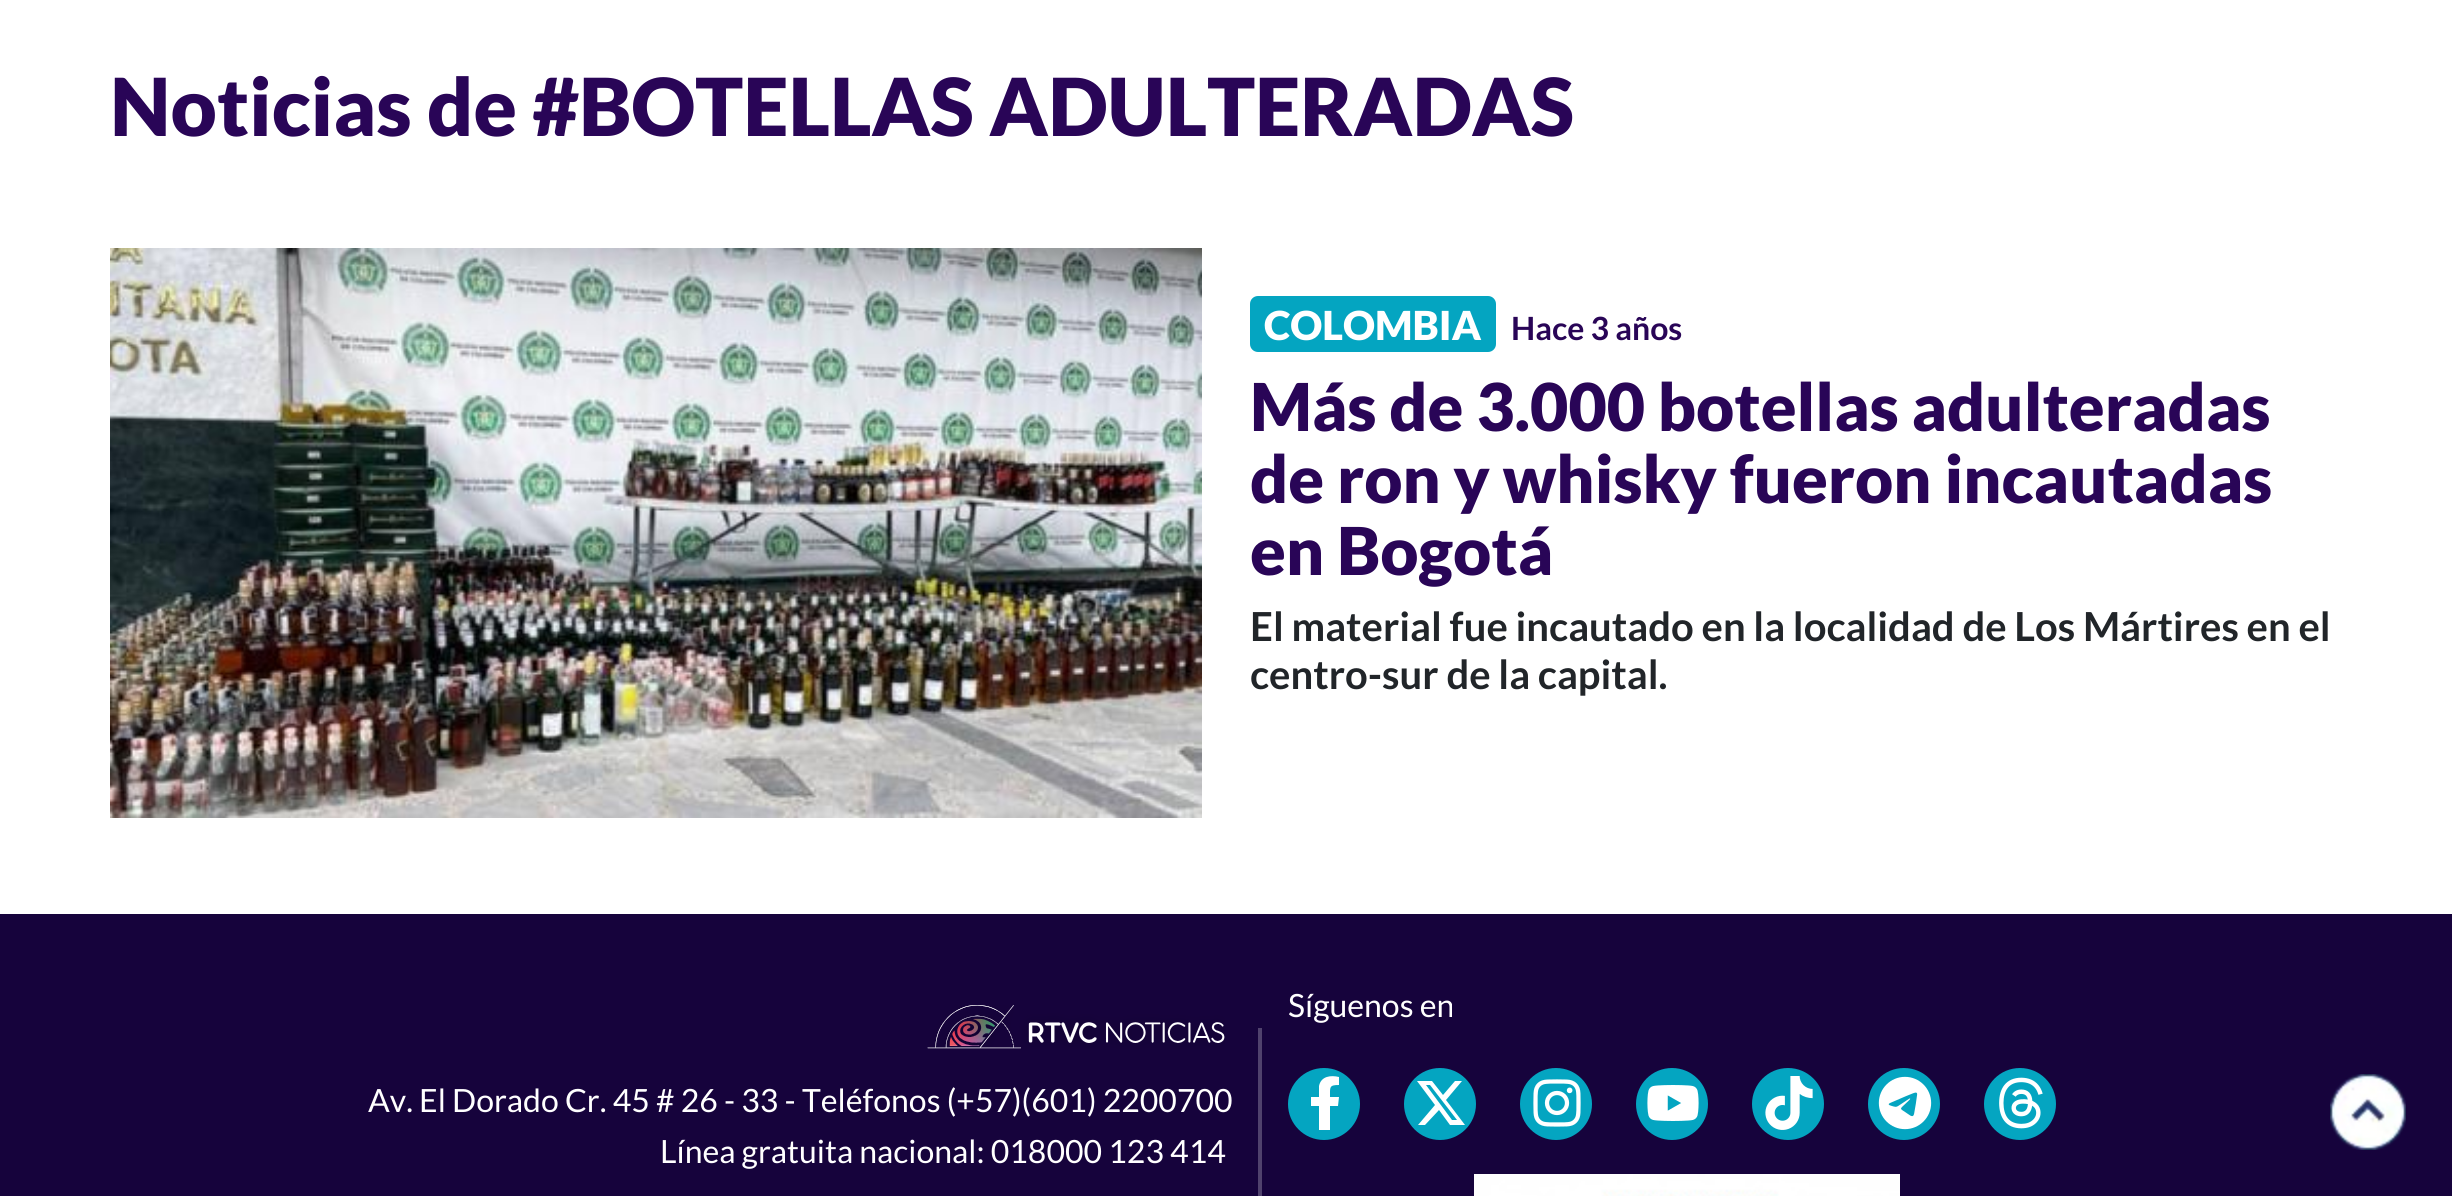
#include <cairo.h>
#include <math.h>
#include <stddef.h>

typedef struct { const char *family; double size; int italic, bold; unsigned color; } style_t;
static cairo_t *ctx;

static void ink(unsigned color) {
    cairo_set_source_rgb(ctx, (color >> 16) / 255.0, (color >> 8 & 255) / 255.0, (color & 255) / 255.0);
}

static void write(double x, double y, const char *s, const style_t *st) {
    cairo_select_font_face(ctx, st->family, st->italic ? CAIRO_FONT_SLANT_ITALIC : CAIRO_FONT_SLANT_NORMAL,
        st->bold ? CAIRO_FONT_WEIGHT_BOLD : CAIRO_FONT_WEIGHT_NORMAL);
    cairo_set_font_size(ctx, st->size);
    ink(st->color);
    cairo_move_to(ctx, x, y);
    cairo_show_text(ctx, s);
}

static void block(double x, double y, double w, double h, unsigned color) {
    ink(color);
    cairo_rectangle(ctx, x, y, w, h);
    cairo_fill(ctx);
}

static void round_path(double x, double y, double w, double h, double r) {
    cairo_new_sub_path(ctx);
    cairo_arc(ctx, x + w - r, y + h - r, r, 0, M_PI / 2);
    cairo_arc(ctx, x + r, y + h - r, r, M_PI / 2, M_PI);
    cairo_arc(ctx, x + r, y + r, r, M_PI, 1.5 * M_PI);
    cairo_arc(ctx, x + w - r, y + r, r, 1.5 * M_PI, 2 * M_PI);
    cairo_close_path(ctx);
}

static void paste(const char *path, double x, double y, double w, double h) {
    cairo_surface_t *image = cairo_image_surface_create_from_png(path);
    cairo_save(ctx);
    cairo_set_source_surface(ctx, image, x, y);
    cairo_rectangle(ctx, x, y, w, h);
    cairo_fill(ctx);
    cairo_restore(ctx);
    cairo_surface_destroy(image);
}

static const style_t s1 = {"Lato Black", 80, 0, 0, 0x290557};
static const style_t s2 = {"Lato Black", 40, 0, 0, 0xffffff};
static const style_t s3 = {"Lato", 32, 0, 1, 0x290557};
static const style_t s4 = {"Lato Black", 66, 0, 0, 0x290557};
static const style_t s5 = {"Lato", 40, 0, 1, 0x212529};
static const style_t s6 = {"Lato", 32, 0, 0, 0xffffff};

int main(void) {
    cairo_surface_t *surface = cairo_image_surface_create(CAIRO_FORMAT_RGB24, 2452, 1196);
    ctx = cairo_create(surface);
    cairo_font_options_t *options = cairo_font_options_create();
    cairo_font_options_set_hint_metrics(options, CAIRO_HINT_METRICS_OFF);
    cairo_font_options_set_hint_style(options, CAIRO_HINT_STYLE_NONE);
    cairo_set_font_options(ctx, options);
    cairo_set_miter_limit(ctx, 4);
    ink(0xffffff);
    cairo_paint(ctx);
    write(110, 136, "Noticias de #BOTELLAS ADULTERADAS", &s1);
    paste("pic1.png", 110, 248, 1092, 570);
    ink(0x04a5c1);
    round_path(1250, 296, 246, 56, 8);
    cairo_fill(ctx);
    write(1264, 340, "COLOMBIA", &s2);
    write(1511, 340, "Hace 3 años", &s3);
    write(1250, 431, "Más de 3.000 botellas adulteradas", &s4);
    write(1250, 503, "de ron y whisky fueron incautadas", &s4);
    write(1250, 575, "en Bogotá", &s4);
    write(1250, 641, "El material fue incautado en la localidad de Los Mártires en el", &s5);
    write(1250, 689, "centro-sur de la capital.", &s5);
    block(0, 914, 2452, 282, 0x16033c);
    write(1288, 1017, "Síguenos en", &s6);
    ink(0x04a5c1);
    cairo_new_path(ctx);
    cairo_arc(ctx, 1324, 1104, 36, 0, 2 * M_PI);
    cairo_fill(ctx);
    ink(0xffffff);
    cairo_new_path(ctx);
    cairo_move_to(ctx, 1338, 1106);
    cairo_line_to(ctx, 1339, 1097);
    cairo_line_to(ctx, 1330, 1097);
    cairo_curve_to(ctx, 1330, 1087, 1329, 1085, 1339, 1085);
    cairo_line_to(ctx, 1339, 1077);
    cairo_curve_to(ctx, 1331, 1075, 1321, 1076, 1319, 1086);
    cairo_line_to(ctx, 1319, 1097);
    cairo_line_to(ctx, 1311, 1097);
    cairo_line_to(ctx, 1311, 1106);
    cairo_line_to(ctx, 1319, 1106);
    cairo_line_to(ctx, 1319, 1130);
    cairo_line_to(ctx, 1330, 1130);
    cairo_line_to(ctx, 1330, 1106);
    cairo_close_path(ctx);
    cairo_fill(ctx);
    ink(0x04a5c1);
    cairo_arc(ctx, 1440, 1104, 36, 0, 2 * M_PI);
    cairo_fill(ctx);
    ink(0xffffff);
    cairo_new_path(ctx);
    cairo_move_to(ctx, 1455, 1081);
    cairo_line_to(ctx, 1462, 1081);
    cairo_line_to(ctx, 1446, 1100);
    cairo_line_to(ctx, 1465, 1125);
    cairo_line_to(ctx, 1450, 1125);
    cairo_line_to(ctx, 1439, 1110);
    cairo_line_to(ctx, 1425, 1125);
    cairo_line_to(ctx, 1418, 1125);
    cairo_line_to(ctx, 1435, 1105);
    cairo_line_to(ctx, 1417, 1081);
    cairo_line_to(ctx, 1432, 1081);
    cairo_line_to(ctx, 1443, 1095);
    cairo_close_path(ctx);
    cairo_move_to(ctx, 1452, 1120);
    cairo_line_to(ctx, 1457, 1120);
    cairo_line_to(ctx, 1430, 1085);
    cairo_line_to(ctx, 1426, 1085);
    cairo_close_path(ctx);
    cairo_fill(ctx);
    ink(0x04a5c1);
    cairo_arc(ctx, 1556, 1104, 36, 0, 2 * M_PI);
    cairo_fill(ctx);
    paste("pic2.png", 1533, 1079, 48, 48);
    cairo_arc(ctx, 1672, 1104, 36, 0, 2 * M_PI);
    cairo_fill(ctx);
    paste("pic3.png", 1647, 1085, 52, 36);
    cairo_arc(ctx, 1788, 1104, 36, 0, 2 * M_PI);
    cairo_fill(ctx);
    paste("pic4.png", 1765, 1076, 48, 54);
    cairo_arc(ctx, 1904, 1104, 36, 0, 2 * M_PI);
    cairo_fill(ctx);
    paste("pic5.png", 1878, 1076, 54, 54);
    cairo_arc(ctx, 2020, 1104, 36, 0, 2 * M_PI);
    cairo_fill(ctx);
    paste("pic6.png", 1999, 1077, 44, 52);
    paste("pic7.png", 1474, 1174, 426, 22);
    paste("pic8.png", 927, 1005, 298, 44);
    write(368, 1112, "Av. El Dorado Cr. 45 # 26 - 33 - Teléfonos (+57)(601) 2200700", &s6);
    write(660, 1163, "Línea gratuita nacional: 018000 123 414", &s6);
    block(1258, 1028, 4, 168, 0x50426d);
    paste("pic9.png", 2330, 1074, 76, 76);
    cairo_surface_write_to_png(surface, "screenshot.png");
    cairo_font_options_destroy(options);
    cairo_destroy(ctx);
    cairo_surface_destroy(surface);
    return 0;
}
